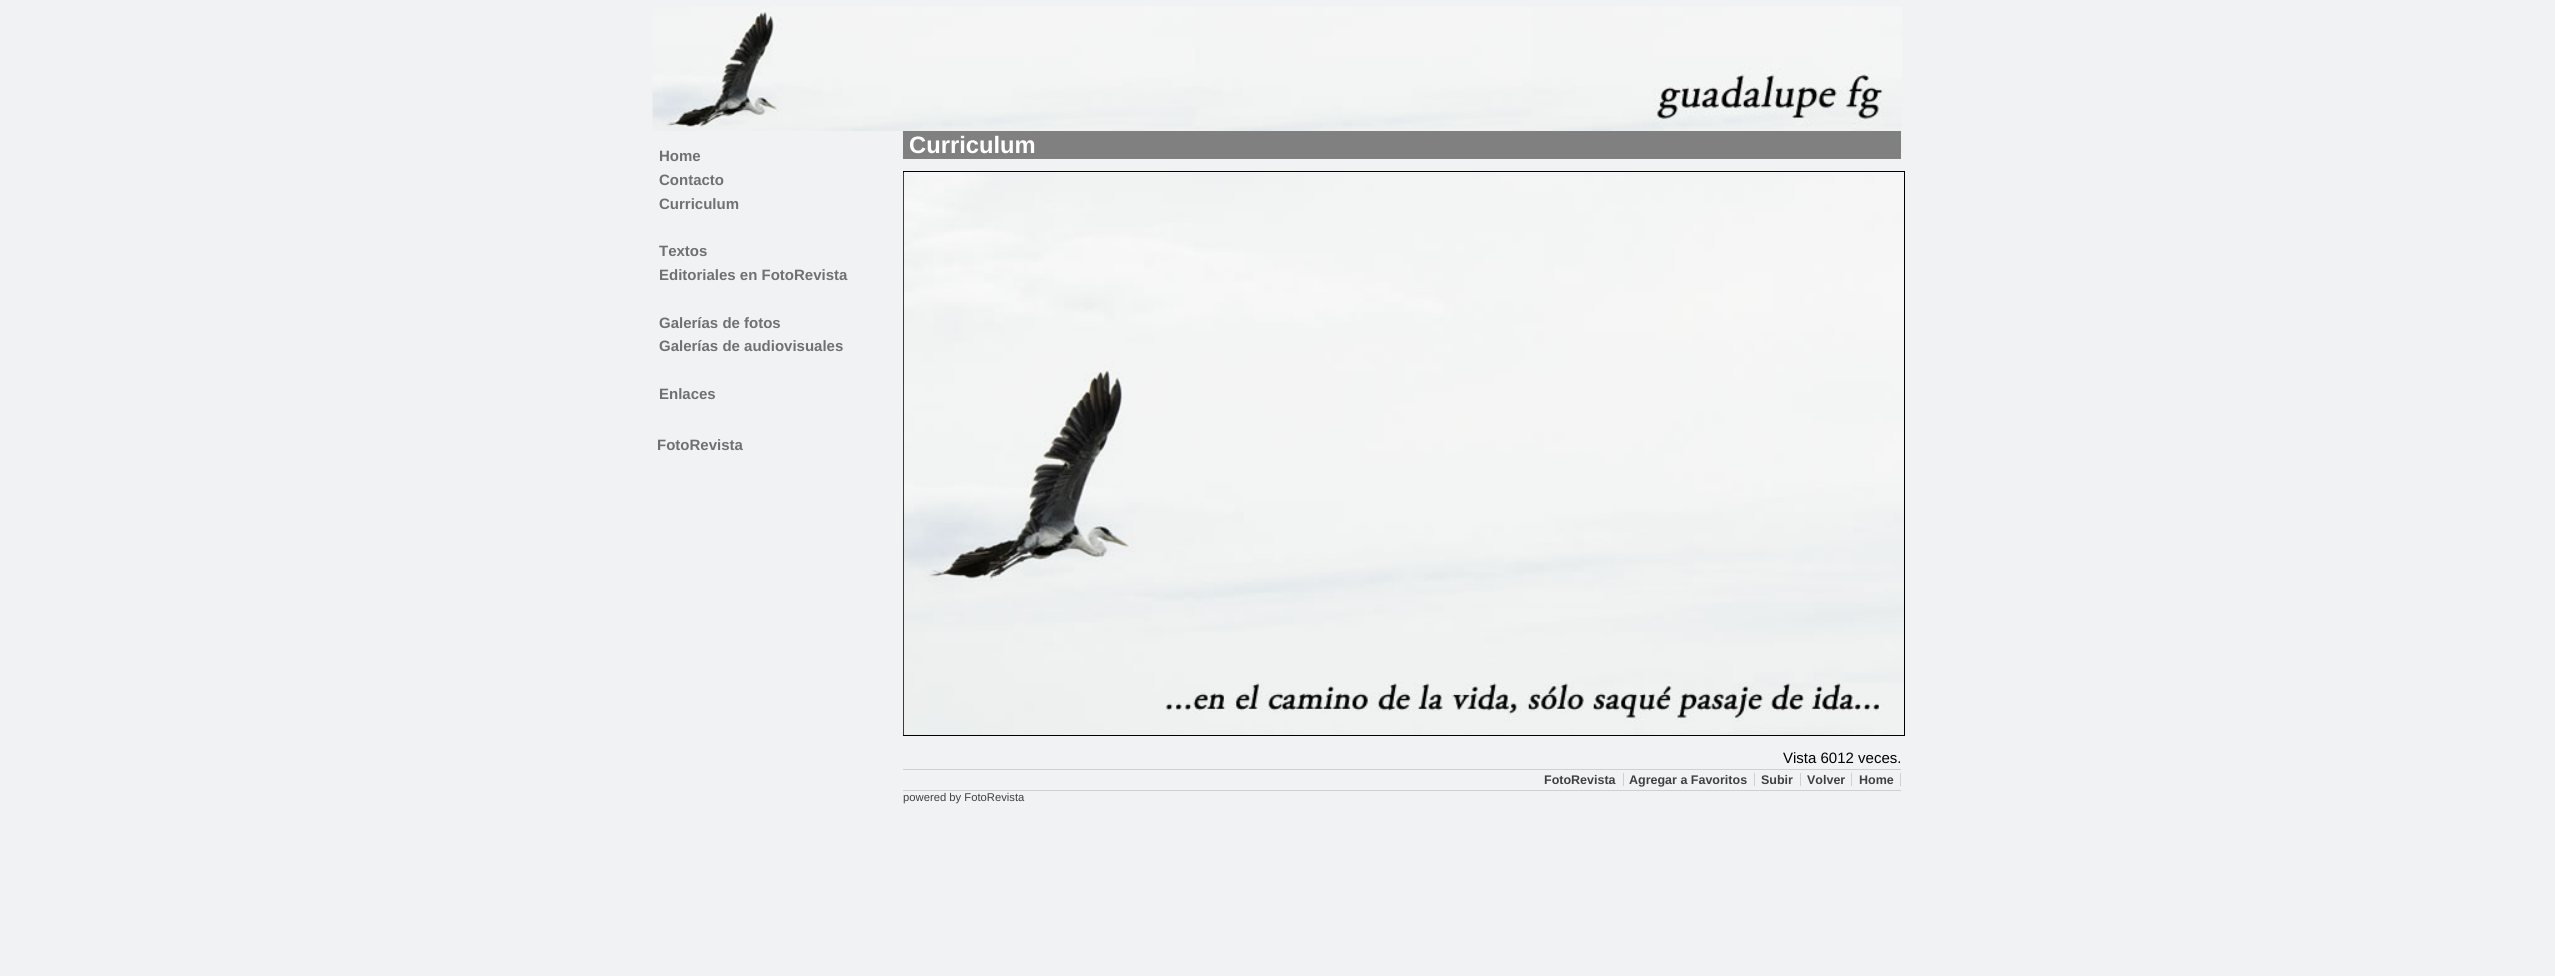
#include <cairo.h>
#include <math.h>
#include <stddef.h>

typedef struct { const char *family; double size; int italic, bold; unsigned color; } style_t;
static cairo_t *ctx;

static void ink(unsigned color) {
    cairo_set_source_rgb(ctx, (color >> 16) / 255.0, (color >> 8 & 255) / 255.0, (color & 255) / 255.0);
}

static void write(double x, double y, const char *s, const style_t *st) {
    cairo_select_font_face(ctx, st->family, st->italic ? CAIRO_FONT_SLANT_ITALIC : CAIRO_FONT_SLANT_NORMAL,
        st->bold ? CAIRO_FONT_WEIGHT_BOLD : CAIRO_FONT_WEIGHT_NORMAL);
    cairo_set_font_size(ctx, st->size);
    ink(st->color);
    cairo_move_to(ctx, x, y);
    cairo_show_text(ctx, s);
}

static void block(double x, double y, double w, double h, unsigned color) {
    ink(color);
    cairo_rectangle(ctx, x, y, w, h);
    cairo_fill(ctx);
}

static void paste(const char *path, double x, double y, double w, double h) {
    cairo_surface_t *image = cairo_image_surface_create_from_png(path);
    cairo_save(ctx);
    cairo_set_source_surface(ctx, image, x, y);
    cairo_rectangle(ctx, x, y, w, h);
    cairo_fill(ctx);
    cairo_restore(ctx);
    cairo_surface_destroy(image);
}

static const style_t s1 = {"Liberation Sans", 15, 0, 1, 0x707070};
static const style_t s2 = {"Liberation Sans", 23.75, 0, 1, 0xffffff};
static const style_t s3 = {"Liberation Sans", 15, 0, 0, 0x000000};
static const style_t s4 = {"Liberation Sans", 12.5, 0, 1, 0x404040};
static const style_t s5 = {"Liberation Sans", 11.25, 0, 0, 0x404040};

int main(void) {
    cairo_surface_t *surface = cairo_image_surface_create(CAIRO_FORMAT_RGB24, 2555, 976);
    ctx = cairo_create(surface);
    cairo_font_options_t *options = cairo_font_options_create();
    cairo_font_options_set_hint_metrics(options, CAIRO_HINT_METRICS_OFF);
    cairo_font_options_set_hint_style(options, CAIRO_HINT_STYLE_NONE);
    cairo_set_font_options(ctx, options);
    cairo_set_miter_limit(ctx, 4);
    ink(0xf0f2f4);
    cairo_paint(ctx);
    paste("pic1.png", 652, 6, 1250, 125);
    write(659, 161, "Home", &s1);
    write(659, 185, "Contacto", &s1);
    write(659, 209, "Curriculum", &s1);
    write(659, 256, "Textos", &s1);
    write(659, 280, "Editoriales en FotoRevista", &s1);
    write(659, 328, "Galerías de fotos", &s1);
    write(659, 351, "Galerías de audiovisuales", &s1);
    write(659, 399, "Enlaces", &s1);
    write(657, 450, "FotoRevista", &s1);
    block(903, 131, 998, 28, 0x808080);
    write(909, 153, "Curriculum", &s2);
    cairo_rectangle(ctx, 903.5, 171.5, 1001, 564);
    ink(0x000000);
    cairo_set_line_width(ctx, 1);
    cairo_stroke(ctx);
    paste("pic2.png", 903, 172, 1001, 563);
    write(1783, 763, "Vista 6012 veces.", &s3);
    block(903, 769, 998, 1, 0xd0d0d0);
    block(1623, 773, 1, 13, 0xd0d0d0);
    write(1544, 784, "FotoRevista", &s4);
    block(1754, 773, 1, 13, 0xd0d0d0);
    write(1629, 784, "Agregar a Favoritos", &s4);
    block(1800, 773, 1, 13, 0xd0d0d0);
    write(1761, 784, "Subir", &s4);
    block(1851, 773, 1, 13, 0xd0d0d0);
    write(1807, 784, "Volver", &s4);
    block(1900, 773, 1, 13, 0xd0d0d0);
    write(1859, 784, "Home", &s4);
    block(903, 790, 998, 1, 0xd0d0d0);
    write(903, 801, "powered by FotoRevista", &s5);
    cairo_surface_write_to_png(surface, "screenshot.png");
    cairo_font_options_destroy(options);
    cairo_destroy(ctx);
    cairo_surface_destroy(surface);
    return 0;
}
